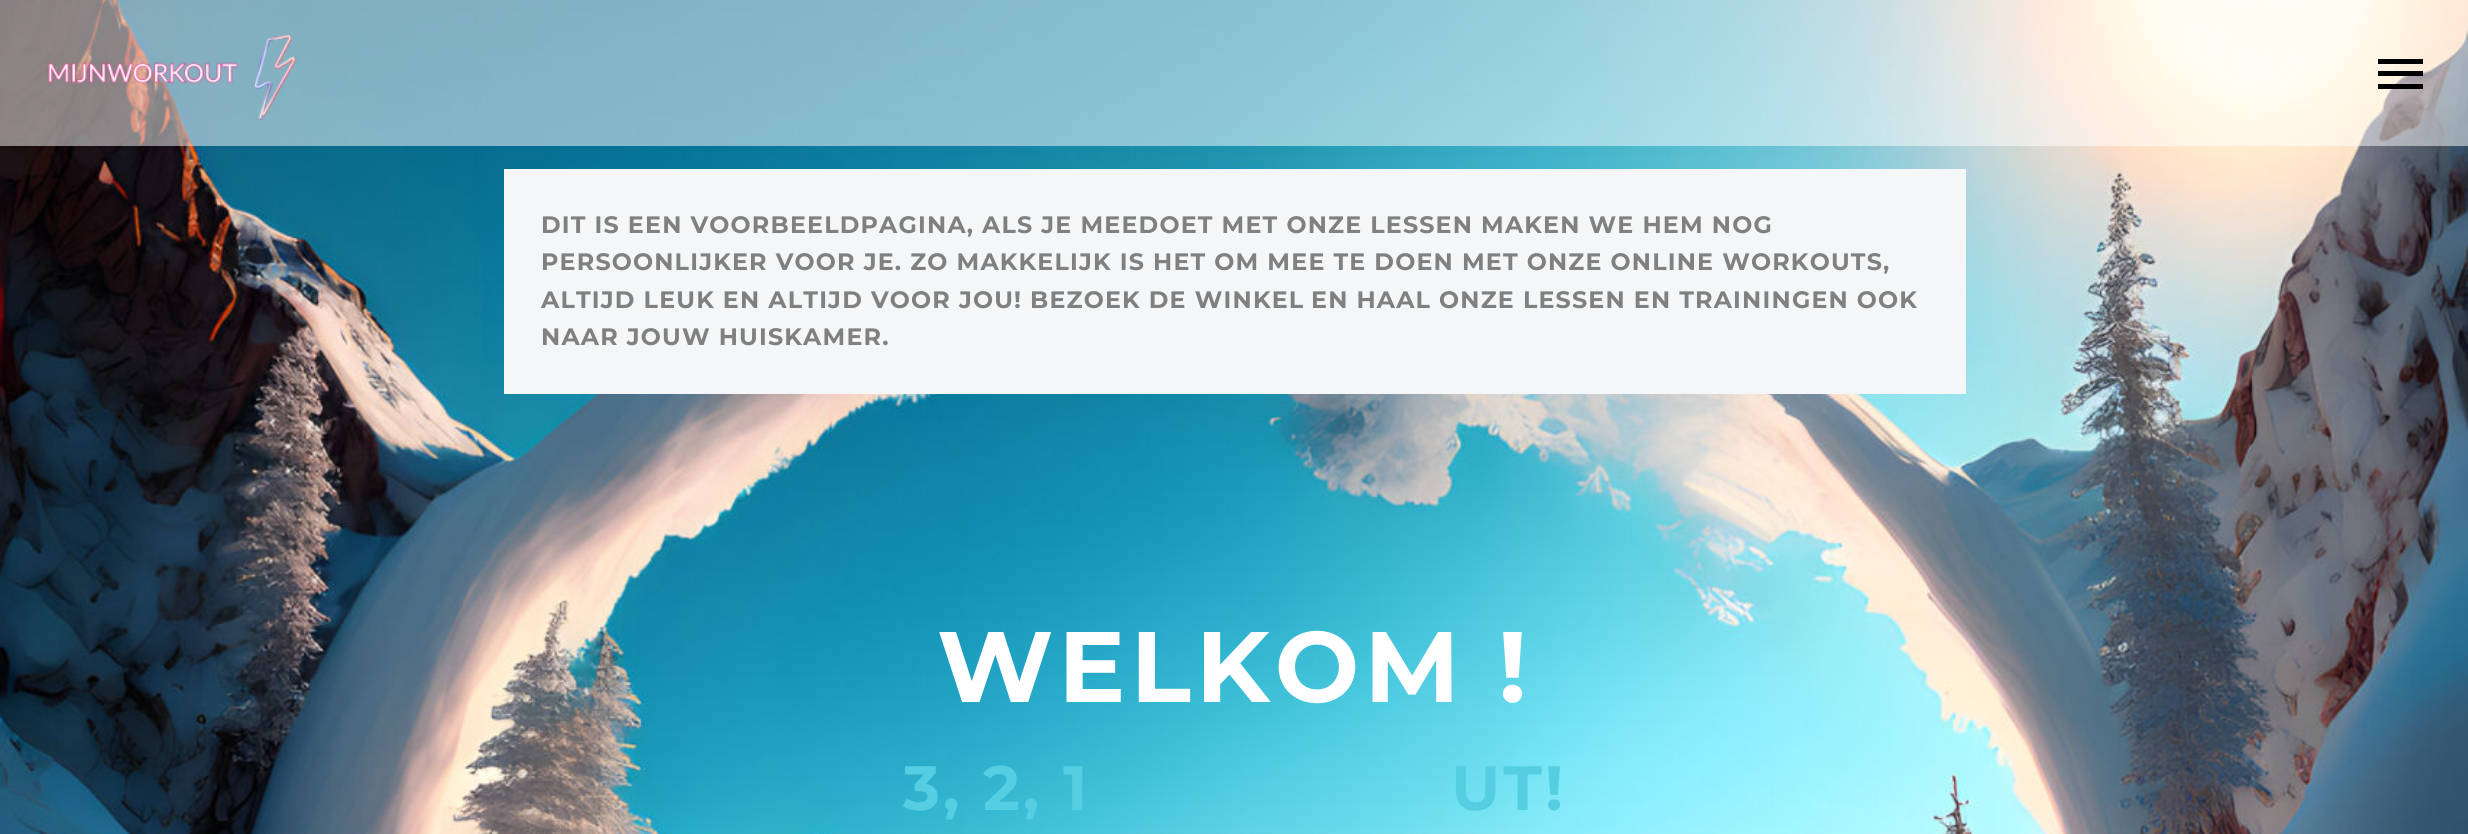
#include <cairo.h>
#include <math.h>
#include <stddef.h>

static cairo_t *ctx;

static void ink(unsigned color) {
    cairo_set_source_rgb(ctx, (color >> 16) / 255.0, (color >> 8 & 255) / 255.0, (color & 255) / 255.0);
}

static void write_spaced(double x, double y, const char *s, double letter, double word) {
    cairo_move_to(ctx, x, y);
    while (*s) {
        char ch[5] = {0};
        int n = 0;
        do ch[n++] = *s++; while ((*s & 0xC0) == 0x80);
        cairo_show_text(ctx, ch);
        cairo_rel_move_to(ctx, letter + word * (*ch == ' '), 0);
    }
}

static void block(double x, double y, double w, double h, unsigned color) {
    ink(color);
    cairo_rectangle(ctx, x, y, w, h);
    cairo_fill(ctx);
}

static void paste(const char *path, double x, double y, double w, double h) {
    cairo_surface_t *image = cairo_image_surface_create_from_png(path);
    cairo_save(ctx);
    cairo_set_source_surface(ctx, image, x, y);
    cairo_rectangle(ctx, x, y, w, h);
    cairo_fill(ctx);
    cairo_restore(ctx);
    cairo_surface_destroy(image);
}

int main(void) {
    cairo_surface_t *surface = cairo_image_surface_create(CAIRO_FORMAT_RGB24, 2468, 834);
    ctx = cairo_create(surface);
    cairo_font_options_t *options = cairo_font_options_create();
    cairo_font_options_set_hint_metrics(options, CAIRO_HINT_METRICS_OFF);
    cairo_font_options_set_hint_style(options, CAIRO_HINT_STYLE_NONE);
    cairo_set_font_options(ctx, options);
    cairo_set_miter_limit(ctx, 4);
    ink(0xffffff);
    cairo_paint(ctx);
    paste("pic2.png", 0, 0, 2468, 834);
    cairo_set_source_rgba(ctx, 1, 1, 1, 0.5);
    cairo_rectangle(ctx, 0, 0, 2468, 146);
    cairo_fill(ctx);
    paste("pic1.png", 47, 34, 250, 87);
    block(2378, 59, 45, 5, 0x000000);
    block(2378, 71, 45, 5, 0x000000);
    block(2378, 84, 45, 5, 0x000000);
    block(504, 169, 1462, 225, 0xf4f6f7);
    cairo_select_font_face(ctx, "Montserrat", CAIRO_FONT_SLANT_NORMAL, CAIRO_FONT_WEIGHT_BOLD);
    cairo_set_font_size(ctx, 23.75);
    ink(0x808080);
    write_spaced(541, 233, "DIT IS EEN VOORBEELDPAGINA, ALS JE MEEDOET MET ONZE LESSEN MAKEN WE HEM NOG", 1.2, 0);
    write_spaced(541, 270, "PERSOONLIJKER VOOR JE. ZO MAKKELIJK IS HET OM MEE TE DOEN MET ONZE ONLINE WORKOUTS,", 1.2, 0);
    write_spaced(541, 308, "ALTIJD LEUK EN ALTIJD VOOR JOU! BEZOEK DE WINKEL", 1.2, 0);
    write_spaced(1311, 308, "EN HAAL ONZE LESSEN EN TRAININGEN OOK", 1.2, 0);
    write_spaced(541, 345, "NAAR JOUW HUISKAMER.", 1.2, 0);
    cairo_set_font_size(ctx, 100);
    ink(0xffffff);
    write_spaced(937, 702, "WELKOM !", 5, 0);
    cairo_set_font_size(ctx, 62.5);
    ink(0x55cee2);
    write_spaced(903, 810, "3, 2, 1", 3, 0);
    write_spaced(1451, 810, "UT!", 3, 0);
    cairo_surface_write_to_png(surface, "screenshot.png");
    cairo_font_options_destroy(options);
    cairo_destroy(ctx);
    cairo_surface_destroy(surface);
    return 0;
}
